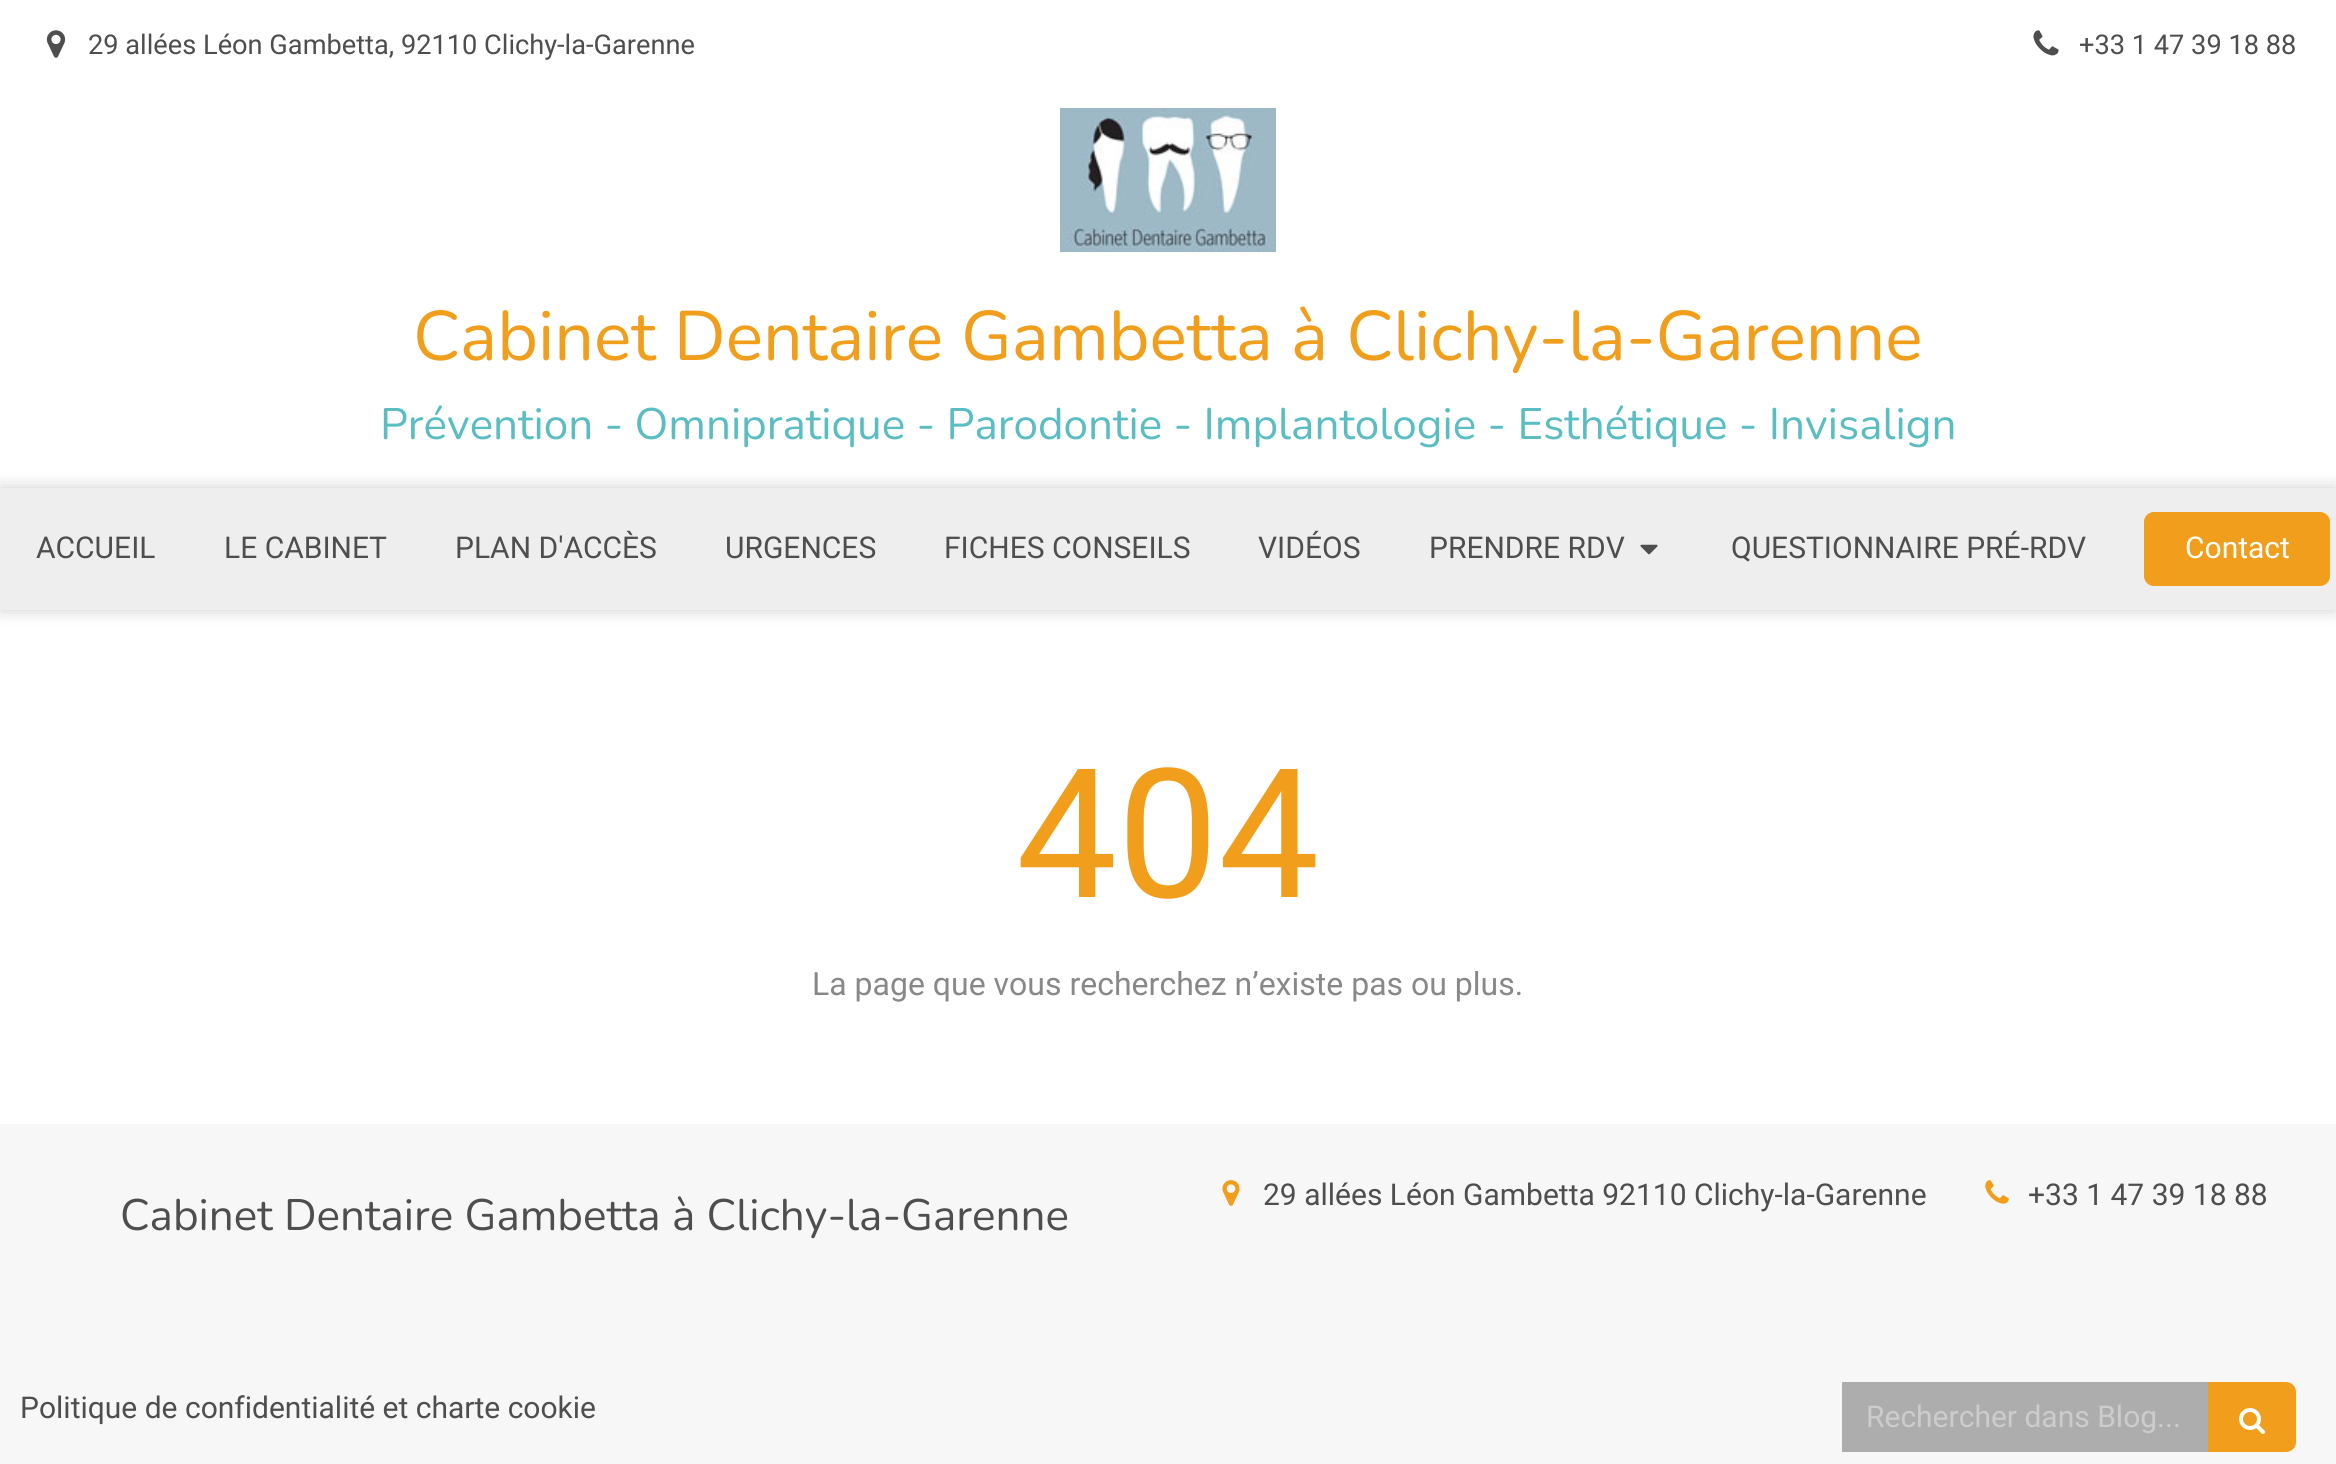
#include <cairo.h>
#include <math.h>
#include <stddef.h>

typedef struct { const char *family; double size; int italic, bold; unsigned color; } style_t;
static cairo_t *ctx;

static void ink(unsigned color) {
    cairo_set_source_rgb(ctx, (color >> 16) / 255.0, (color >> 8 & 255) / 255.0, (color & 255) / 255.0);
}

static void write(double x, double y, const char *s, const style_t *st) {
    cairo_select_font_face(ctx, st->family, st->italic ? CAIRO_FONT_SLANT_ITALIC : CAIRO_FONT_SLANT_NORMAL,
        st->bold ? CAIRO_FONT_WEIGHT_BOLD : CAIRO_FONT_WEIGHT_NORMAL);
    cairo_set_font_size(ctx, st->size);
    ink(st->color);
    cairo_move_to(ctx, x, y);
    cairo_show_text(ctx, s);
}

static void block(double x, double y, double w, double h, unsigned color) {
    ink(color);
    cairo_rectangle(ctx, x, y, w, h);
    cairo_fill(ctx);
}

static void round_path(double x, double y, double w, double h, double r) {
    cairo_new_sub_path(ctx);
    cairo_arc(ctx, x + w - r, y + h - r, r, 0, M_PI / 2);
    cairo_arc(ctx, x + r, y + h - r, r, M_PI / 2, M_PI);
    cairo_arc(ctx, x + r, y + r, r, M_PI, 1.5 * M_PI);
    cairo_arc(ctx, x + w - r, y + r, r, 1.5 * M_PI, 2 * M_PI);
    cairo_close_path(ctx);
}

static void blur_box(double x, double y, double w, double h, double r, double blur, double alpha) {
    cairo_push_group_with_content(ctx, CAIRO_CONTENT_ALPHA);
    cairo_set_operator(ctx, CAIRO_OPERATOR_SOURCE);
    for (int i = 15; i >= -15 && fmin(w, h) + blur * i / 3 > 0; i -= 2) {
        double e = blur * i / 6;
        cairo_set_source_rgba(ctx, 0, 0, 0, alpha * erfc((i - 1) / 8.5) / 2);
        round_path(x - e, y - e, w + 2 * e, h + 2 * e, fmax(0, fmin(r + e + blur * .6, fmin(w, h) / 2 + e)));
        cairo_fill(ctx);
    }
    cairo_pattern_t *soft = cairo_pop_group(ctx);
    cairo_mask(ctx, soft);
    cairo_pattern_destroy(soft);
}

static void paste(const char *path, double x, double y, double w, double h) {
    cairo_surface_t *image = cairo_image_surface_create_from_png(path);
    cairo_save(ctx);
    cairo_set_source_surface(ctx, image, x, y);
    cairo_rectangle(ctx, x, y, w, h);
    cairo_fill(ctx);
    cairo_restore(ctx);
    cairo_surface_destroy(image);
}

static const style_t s1 = {"Roboto", 27.2, 0, 0, 0x4e4e4e};
static const style_t s2 = {"Nunito", 70, 0, 0, 0xf09e1c};
static const style_t s3 = {"Nunito", 44, 0, 0, 0x59bdc2};
static const style_t s4 = {"Roboto", 30, 0, 0, 0x4e4e4e};
static const style_t s5 = {"Roboto", 30, 0, 0, 0xffffff};
static const style_t s6 = {"Roboto", 180, 0, 0, 0xf09e1c};
static const style_t s7 = {"Roboto", 32, 0, 0, 0x888888};
static const style_t s8 = {"Nunito", 44, 0, 0, 0x4e4e4e};
static const style_t s9 = {"Roboto", 30, 0, 0, 0xcccccc};

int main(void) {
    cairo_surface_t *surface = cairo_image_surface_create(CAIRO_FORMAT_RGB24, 2336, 1464);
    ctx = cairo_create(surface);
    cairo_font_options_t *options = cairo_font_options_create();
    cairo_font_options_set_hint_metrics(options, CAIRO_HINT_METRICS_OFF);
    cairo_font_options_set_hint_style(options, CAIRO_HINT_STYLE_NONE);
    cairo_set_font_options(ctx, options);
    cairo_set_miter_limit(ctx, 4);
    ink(0xffffff);
    cairo_paint(ctx);
    paste("pic1.png", 46, 30, 20, 28);
    write(88, 54, "29 allées Léon Gambetta, 92110 Clichy-la-Garenne", &s1);
    paste("pic2.png", 2033, 30, 26, 26);
    write(2079, 54, "+33 1 47 39 18 88", &s1);
    paste("pic3.png", 1060, 108, 216, 144);
    write(413, 360, "Cabinet Dentaire Gambetta à Clichy-la-Garenne", &s2);
    write(380, 439, "Prévention - Omnipratique - Parodontie - Implantologie - Esthétique - Invisalign", &s3);
    ink(0x000000);
    blur_box(0, 488, 2336, 122, 0, 8, 0.2);
    block(0, 488, 2336, 122, 0xeeeeee);
    write(36, 558, "ACCUEIL", &s4);
    write(224, 558, "LE CABINET", &s4);
    write(455, 558, "PLAN D'ACCÈS", &s4);
    write(725, 558, "URGENCES", &s4);
    write(944, 558, "FICHES CONSEILS", &s4);
    write(1258, 558, "VIDÉOS", &s4);
    write(1429, 558, "PRENDRE RDV", &s4);
    paste("pic4.png", 1640, 544, 18, 11);
    write(1731, 558, "QUESTIONNAIRE PRÉ-RDV", &s4);
    ink(0xf09e1c);
    round_path(2144, 512, 186, 74, 10);
    cairo_fill(ctx);
    write(2185, 558, "Contact", &s5);
    write(1016, 897, "404", &s6);
    write(812, 995, "La page que vous recherchez n’existe pas ou plus.", &s7);
    block(0, 1124, 2336, 340, 0xf7f7f7);
    write(120, 1230, "Cabinet Dentaire Gambetta à Clichy-la-Garenne", &s8);
    paste("pic5.png", 1222, 1180, 18, 26);
    write(1263, 1205, "29 allées Léon Gambetta 92110 Clichy-la-Garenne", &s4);
    paste("pic6.png", 1985, 1180, 24, 24);
    write(2028, 1205, "+33 1 47 39 18 88", &s4);
    write(20, 1418, "Politique de confidentialité et charte cookie", &s4);
    block(1842, 1382, 366, 70, 0xadadad);
    write(1866, 1427, "Rechercher dans Blog...", &s9);
    ink(0xf09e1c);
    cairo_new_path(ctx);
    cairo_move_to(ctx, 2208, 1382);
    cairo_line_to(ctx, 2286, 1382);
    cairo_curve_to(ctx, 2291.5, 1382, 2296, 1386.5, 2296, 1392);
    cairo_line_to(ctx, 2296, 1442);
    cairo_curve_to(ctx, 2296, 1447.5, 2291.5, 1452, 2286, 1452);
    cairo_line_to(ctx, 2208, 1452);
    cairo_close_path(ctx);
    cairo_fill(ctx);
    paste("pic7.png", 2239, 1408, 26, 26);
    cairo_surface_write_to_png(surface, "screenshot.png");
    cairo_font_options_destroy(options);
    cairo_destroy(ctx);
    cairo_surface_destroy(surface);
    return 0;
}
